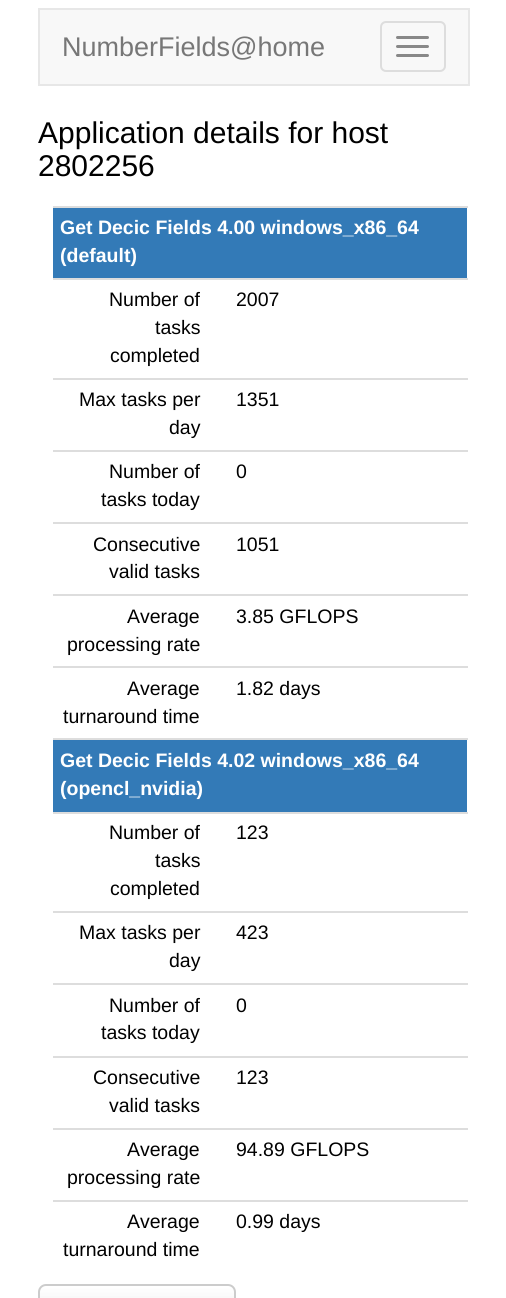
#include <cairo.h>
#include <math.h>
#include <stddef.h>

typedef struct { const char *family; double size; int italic, bold; unsigned color; } style_t;
static cairo_t *ctx;

static void ink(unsigned color) {
    cairo_set_source_rgb(ctx, (color >> 16) / 255.0, (color >> 8 & 255) / 255.0, (color & 255) / 255.0);
}

static void write(double x, double y, const char *s, const style_t *st) {
    cairo_select_font_face(ctx, st->family, st->italic ? CAIRO_FONT_SLANT_ITALIC : CAIRO_FONT_SLANT_NORMAL,
        st->bold ? CAIRO_FONT_WEIGHT_BOLD : CAIRO_FONT_WEIGHT_NORMAL);
    cairo_set_font_size(ctx, st->size);
    ink(st->color);
    cairo_move_to(ctx, x, y);
    cairo_show_text(ctx, s);
}

static void block(double x, double y, double w, double h, unsigned color) {
    ink(color);
    cairo_rectangle(ctx, x, y, w, h);
    cairo_fill(ctx);
}

static void round_path(double x, double y, double w, double h, double r) {
    cairo_new_sub_path(ctx);
    cairo_arc(ctx, x + w - r, y + h - r, r, 0, M_PI / 2);
    cairo_arc(ctx, x + r, y + h - r, r, M_PI / 2, M_PI);
    cairo_arc(ctx, x + r, y + r, r, M_PI, 1.5 * M_PI);
    cairo_arc(ctx, x + w - r, y + r, r, 1.5 * M_PI, 2 * M_PI);
    cairo_close_path(ctx);
}

static void paste(const char *path, double x, double y, double w, double h) {
    cairo_surface_t *image = cairo_image_surface_create_from_png(path);
    cairo_save(ctx);
    cairo_set_source_surface(ctx, image, x, y);
    cairo_rectangle(ctx, x, y, w, h);
    cairo_fill(ctx);
    cairo_restore(ctx);
    cairo_surface_destroy(image);
}

static const style_t s1 = {"Liberation Sans", 27, 0, 0, 0x777777};
static const style_t s2 = {"Liberation Sans", 30, 0, 0, 0x000000};
static const style_t s3 = {"Liberation Sans", 19.5, 0, 1, 0xffffff};
static const style_t s4 = {"Liberation Sans", 19.5, 0, 0, 0x000000};

int main(void) {
    cairo_surface_t *surface = cairo_image_surface_create(CAIRO_FORMAT_RGB24, 506, 1298);
    ctx = cairo_create(surface);
    cairo_font_options_t *options = cairo_font_options_create();
    cairo_font_options_set_hint_metrics(options, CAIRO_HINT_METRICS_OFF);
    cairo_font_options_set_hint_style(options, CAIRO_HINT_STYLE_NONE);
    cairo_set_font_options(ctx, options);
    cairo_set_miter_limit(ctx, 4);
    ink(0xffffff);
    cairo_paint(ctx);
    ink(0xf8f8f8);
    cairo_rectangle(ctx, 39, 9, 430, 76);
    cairo_fill_preserve(ctx);
    ink(0xe7e7e7);
    cairo_stroke(ctx);
    write(62, 56, "NumberFields@home", &s1);
    round_path(381, 22, 64, 49, 5);
    ink(0xdddddd);
    cairo_stroke(ctx);
    ink(0x888888);
    round_path(396, 36, 33, 3, 1.5);
    cairo_fill(ctx);
    round_path(396, 45, 33, 3, 1.5);
    cairo_fill(ctx);
    round_path(396, 54, 33, 3, 1.5);
    cairo_fill(ctx);
    write(38, 143, "Application details for host", &s2);
    write(38, 176, "2802256", &s2);
    block(53, 208, 414, 70, 0x337ab7);
    block(53, 206, 415, 2, 0xdddddd);
    write(60, 234, "Get Decic Fields 4.00 windows_x86_64", &s3);
    write(60, 262, "(default)", &s3);
    write(109, 306, "Number of", &s4);
    write(155, 334, "tasks", &s4);
    write(110, 362, "completed", &s4);
    block(53, 278, 415, 2, 0xdddddd);
    write(236, 306, "2007", &s4);
    write(79, 406, "Max tasks per", &s4);
    write(169, 434, "day", &s4);
    block(53, 378, 415, 2, 0xdddddd);
    write(236, 406, "1351", &s4);
    write(109, 478, "Number of", &s4);
    write(101, 506, "tasks today", &s4);
    block(53, 450, 415, 2, 0xdddddd);
    write(236, 478, "0", &s4);
    write(93, 551, "Consecutive", &s4);
    write(109, 578, "valid tasks", &s4);
    block(53, 522, 415, 2, 0xdddddd);
    write(236, 551, "1051", &s4);
    write(127, 623, "Average", &s4);
    write(67, 651, "processing rate", &s4);
    block(53, 594, 415, 2, 0xdddddd);
    write(236, 623, "3.85 GFLOPS", &s4);
    write(127, 695, "Average", &s4);
    write(63, 723, "turnaround time", &s4);
    block(53, 666, 415, 2, 0xdddddd);
    write(236, 695, "1.82 days", &s4);
    block(53, 740, 414, 72, 0x337ab7);
    block(53, 738, 415, 2, 0xdddddd);
    write(60, 767, "Get Decic Fields 4.02 windows_x86_64", &s3);
    write(60, 795, "(opencl_nvidia)", &s3);
    write(109, 839, "Number of", &s4);
    write(155, 867, "tasks", &s4);
    write(110, 895, "completed", &s4);
    block(53, 812, 415, 2, 0xdddddd);
    write(236, 839, "123", &s4);
    write(79, 939, "Max tasks per", &s4);
    write(169, 967, "day", &s4);
    block(53, 911, 415, 2, 0xdddddd);
    write(236, 939, "423", &s4);
    write(109, 1012, "Number of", &s4);
    write(101, 1039, "tasks today", &s4);
    block(53, 983, 415, 2, 0xdddddd);
    write(236, 1012, "0", &s4);
    write(93, 1084, "Consecutive", &s4);
    write(109, 1112, "valid tasks", &s4);
    block(53, 1056, 415, 2, 0xdddddd);
    write(236, 1084, "123", &s4);
    write(127, 1156, "Average", &s4);
    write(67, 1184, "processing rate", &s4);
    block(53, 1128, 415, 2, 0xdddddd);
    write(236, 1156, "94.89 GFLOPS", &s4);
    write(127, 1228, "Average", &s4);
    write(63, 1256, "turnaround time", &s4);
    block(53, 1200, 415, 2, 0xdddddd);
    write(236, 1228, "0.99 days", &s4);
    paste("pic1.png", 38, 1285, 197, 13);
    round_path(39, 1285, 196, 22, 7);
    ink(0xcccccc);
    cairo_stroke(ctx);
    cairo_surface_write_to_png(surface, "screenshot.png");
    cairo_font_options_destroy(options);
    cairo_destroy(ctx);
    cairo_surface_destroy(surface);
    return 0;
}
